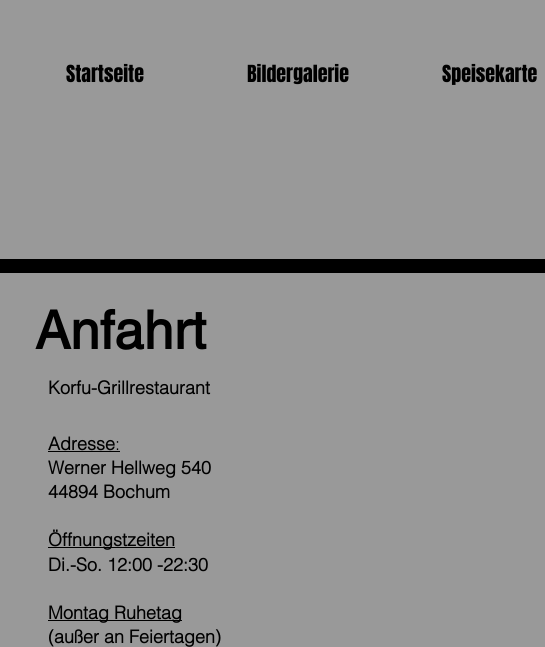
#include <cairo.h>
#include <math.h>
#include <stddef.h>

typedef struct { const char *family; double size; int italic, bold; unsigned color; } style_t;
static cairo_t *ctx;

static void ink(unsigned color) {
    cairo_set_source_rgb(ctx, (color >> 16) / 255.0, (color >> 8 & 255) / 255.0, (color & 255) / 255.0);
}

static void write(double x, double y, const char *s, const style_t *st) {
    cairo_select_font_face(ctx, st->family, st->italic ? CAIRO_FONT_SLANT_ITALIC : CAIRO_FONT_SLANT_NORMAL,
        st->bold ? CAIRO_FONT_WEIGHT_BOLD : CAIRO_FONT_WEIGHT_NORMAL);
    cairo_set_font_size(ctx, st->size);
    ink(st->color);
    cairo_move_to(ctx, x, y);
    cairo_show_text(ctx, s);
}

static void block(double x, double y, double w, double h, unsigned color) {
    ink(color);
    cairo_rectangle(ctx, x, y, w, h);
    cairo_fill(ctx);
}

static const style_t s1 = {"Anton", 20, 0, 0, 0x000000};
static const style_t s2 = {"helvetica", 53, 0, 1, 0x000000};
static const style_t s3 = {"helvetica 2", 18, 0, 1, 0x000000};
static const style_t s4 = {"helvetica Light", 18, 0, 0, 0x000000};

int main(void) {
    cairo_surface_t *surface = cairo_image_surface_create(CAIRO_FORMAT_RGB24, 545, 647);
    ctx = cairo_create(surface);
    cairo_font_options_t *options = cairo_font_options_create();
    cairo_font_options_set_hint_metrics(options, CAIRO_HINT_METRICS_OFF);
    cairo_font_options_set_hint_style(options, CAIRO_HINT_STYLE_NONE);
    cairo_set_font_options(ctx, options);
    cairo_set_miter_limit(ctx, 4);
    ink(0x000000);
    cairo_paint(ctx);
    block(0, 0, 545, 259, 0x999999);
    write(66, 82, "Startseite", &s1);
    write(247, 82, "Bildergalerie", &s1);
    write(442, 82, "Speisekarte", &s1);
    block(0, 273, 545, 374, 0x999999);
    write(35, 349, "Anfahrt", &s2);
    write(48, 394, "Korfu-Grillrestaurant", &s3);
    write(48, 450, "Adresse", &s3);
    write(115, 450, ":", &s4);
    block(48, 451, 72, 1, 0x000000);
    write(48, 474, "Werner Hellweg 540", &s3);
    write(48, 498, "44894 Bochum", &s3);
    block(48, 547, 127, 1, 0x000000);
    write(48, 546, "Öffnungstzeiten", &s3);
    write(48, 571, "Di.-So. 12:00 -22:30", &s3);
    block(48, 620, 134, 1, 0x000000);
    write(48, 619, "Montag Ruhetag", &s3);
    write(48, 643, "(außer an Feiertagen)", &s3);
    cairo_surface_write_to_png(surface, "screenshot.png");
    cairo_font_options_destroy(options);
    cairo_destroy(ctx);
    cairo_surface_destroy(surface);
    return 0;
}
